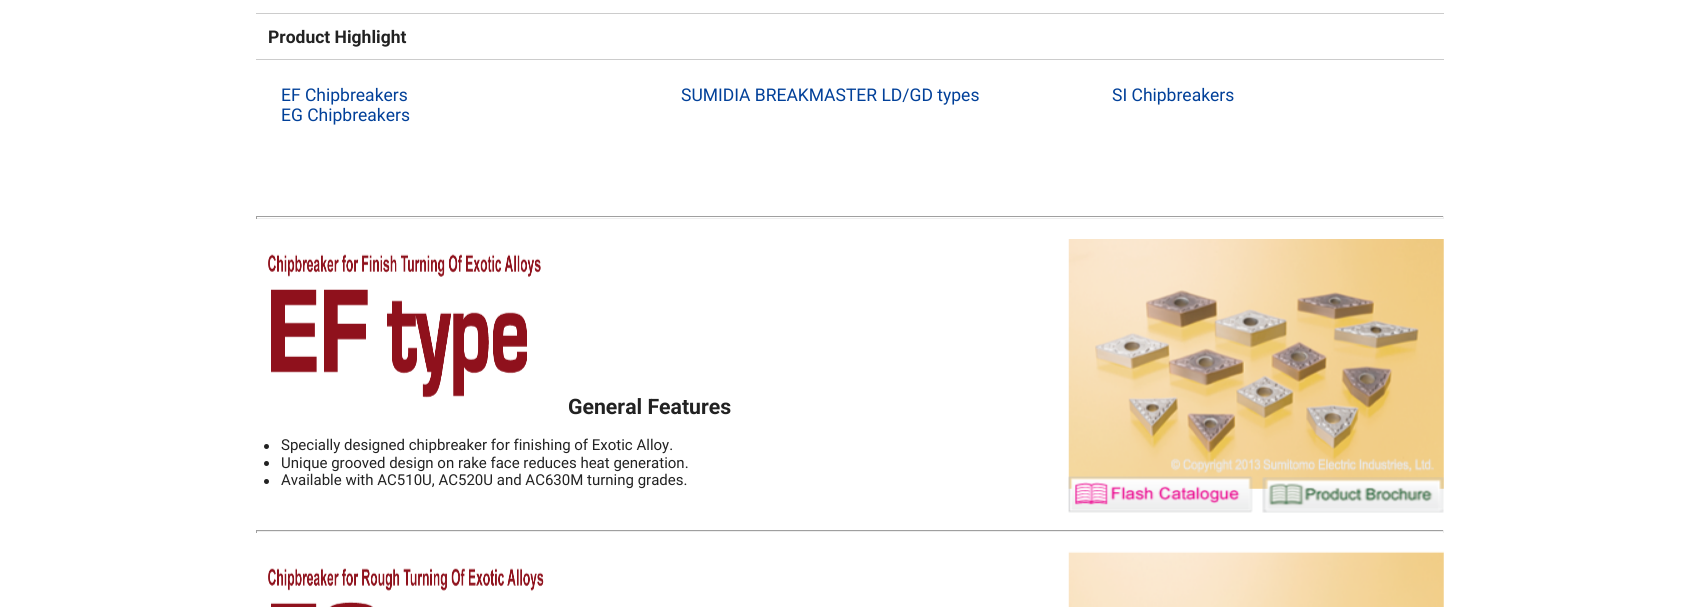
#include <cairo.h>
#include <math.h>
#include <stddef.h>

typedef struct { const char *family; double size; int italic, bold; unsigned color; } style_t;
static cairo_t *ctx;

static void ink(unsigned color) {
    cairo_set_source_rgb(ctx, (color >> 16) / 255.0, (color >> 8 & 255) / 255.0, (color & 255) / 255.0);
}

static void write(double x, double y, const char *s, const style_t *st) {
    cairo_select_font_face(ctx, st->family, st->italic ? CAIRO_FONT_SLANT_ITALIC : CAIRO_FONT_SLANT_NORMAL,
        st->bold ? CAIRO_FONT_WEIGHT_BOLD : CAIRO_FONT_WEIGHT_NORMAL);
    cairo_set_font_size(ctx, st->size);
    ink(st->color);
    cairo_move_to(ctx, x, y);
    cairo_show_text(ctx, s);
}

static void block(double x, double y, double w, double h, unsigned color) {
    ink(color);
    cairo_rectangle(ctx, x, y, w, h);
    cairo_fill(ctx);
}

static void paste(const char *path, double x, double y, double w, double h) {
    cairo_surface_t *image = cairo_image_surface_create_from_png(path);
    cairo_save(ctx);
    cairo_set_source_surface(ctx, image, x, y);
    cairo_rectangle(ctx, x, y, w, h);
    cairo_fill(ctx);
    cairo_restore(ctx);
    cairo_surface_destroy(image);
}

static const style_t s1 = {"Roboto", 17.5, 0, 1, 0x222222};
static const style_t s2 = {"Roboto", 17.5, 0, 0, 0x014099};
static const style_t s3 = {"Roboto", 21.25, 0, 1, 0x222222};
static const style_t s4 = {"Roboto", 15, 0, 0, 0x222222};

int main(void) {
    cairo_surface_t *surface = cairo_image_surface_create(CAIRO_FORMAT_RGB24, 1698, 607);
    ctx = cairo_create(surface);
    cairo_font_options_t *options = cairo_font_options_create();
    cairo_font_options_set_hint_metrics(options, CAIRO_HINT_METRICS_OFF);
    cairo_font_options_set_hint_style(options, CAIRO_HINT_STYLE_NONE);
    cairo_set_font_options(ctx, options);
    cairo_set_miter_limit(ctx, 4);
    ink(0xffffff);
    cairo_paint(ctx);
    block(256, 13, 1188, 1, 0xcccccc);
    block(256, 59, 1188, 1, 0xcccccc);
    write(268, 43, "Product Highlight", &s1);
    write(281, 101, "EF Chipbreakers", &s2);
    write(281, 121, "EG Chipbreakers", &s2);
    write(681, 101, "SUMIDIA BREAKMASTER LD/GD types", &s2);
    write(1112, 101, "SI Chipbreakers", &s2);
    block(256, 216, 1188, 1, 0x9f9f9f);
    block(1443, 216, 1, 3, 0xeeeeee);
    block(256, 218, 1188, 1, 0xeeeeee);
    block(256, 216, 1, 3, 0x9f9f9f);
    paste("pic1.png", 268, 254, 273, 144);
    paste("pic2.png", 1068, 239, 376, 250);
    write(568, 414, "General Features", &s3);
    cairo_new_path(ctx);
    cairo_arc(ctx, 266.5, 446.5, 2.5, 0, 2 * M_PI);
    cairo_fill(ctx);
    write(281, 450, "Specially designed chipbreaker for finishing of Exotic Alloy.", &s4);
    cairo_new_path(ctx);
    cairo_arc(ctx, 266.5, 463.5, 2.5, 0, 2 * M_PI);
    cairo_fill(ctx);
    write(281, 468, "Unique grooved design on rake face reduces heat generation.", &s4);
    cairo_new_path(ctx);
    cairo_arc(ctx, 266.5, 481.5, 2.5, 0, 2 * M_PI);
    cairo_fill(ctx);
    write(281, 485, "Available with AC510U, AC520U and AC630M turning grades.", &s4);
    paste("pic3.png", 1068, 476, 185, 37);
    paste("pic4.png", 1262, 477, 182, 36);
    block(256, 530, 1188, 1, 0x9f9f9f);
    block(1443, 530, 1, 3, 0xeeeeee);
    block(256, 531, 1188, 1, 0xeeeeee);
    block(256, 530, 1, 3, 0x9f9f9f);
    paste("pic5.png", 268, 568, 276, 39);
    paste("pic6.png", 1068, 551, 376, 56);
    cairo_surface_write_to_png(surface, "screenshot.png");
    cairo_font_options_destroy(options);
    cairo_destroy(ctx);
    cairo_surface_destroy(surface);
    return 0;
}
